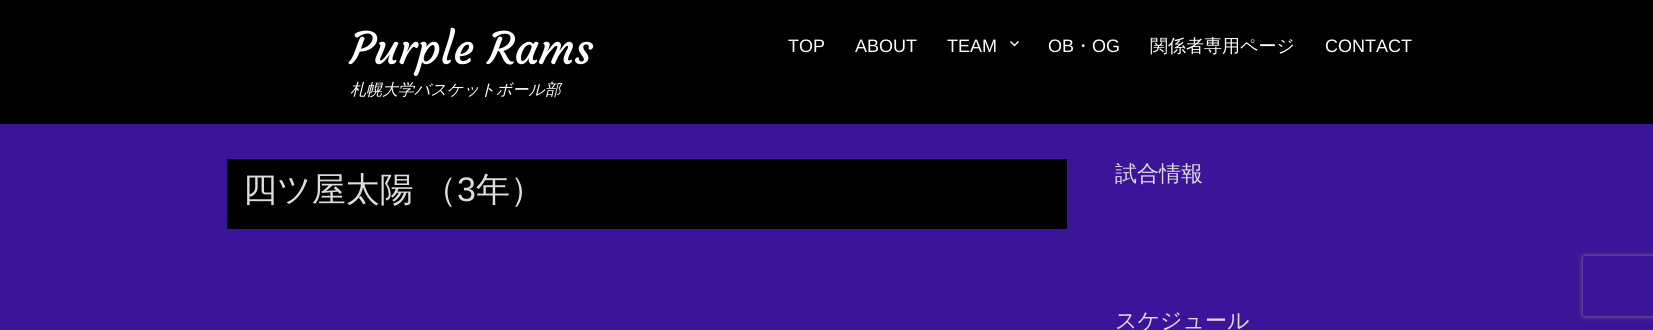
#include <cairo.h>
#include <math.h>
#include <stddef.h>

typedef struct { const char *family; double size; int italic, bold; unsigned color; } style_t;
static cairo_t *ctx;

static void ink(unsigned color) {
    cairo_set_source_rgb(ctx, (color >> 16) / 255.0, (color >> 8 & 255) / 255.0, (color & 255) / 255.0);
}

static void write(double x, double y, const char *s, const style_t *st) {
    cairo_select_font_face(ctx, st->family, st->italic ? CAIRO_FONT_SLANT_ITALIC : CAIRO_FONT_SLANT_NORMAL,
        st->bold ? CAIRO_FONT_WEIGHT_BOLD : CAIRO_FONT_WEIGHT_NORMAL);
    cairo_set_font_size(ctx, st->size);
    ink(st->color);
    cairo_move_to(ctx, x, y);
    cairo_show_text(ctx, s);
}

static void block(double x, double y, double w, double h, unsigned color) {
    ink(color);
    cairo_rectangle(ctx, x, y, w, h);
    cairo_fill(ctx);
}

static void round_path(double x, double y, double w, double h, double r) {
    cairo_new_sub_path(ctx);
    cairo_arc(ctx, x + w - r, y + h - r, r, 0, M_PI / 2);
    cairo_arc(ctx, x + r, y + h - r, r, M_PI / 2, M_PI);
    cairo_arc(ctx, x + r, y + r, r, M_PI, 1.5 * M_PI);
    cairo_arc(ctx, x + w - r, y + r, r, 1.5 * M_PI, 2 * M_PI);
    cairo_close_path(ctx);
}

static void blur_box(double x, double y, double w, double h, double r, double blur, double alpha) {
    cairo_push_group_with_content(ctx, CAIRO_CONTENT_ALPHA);
    cairo_set_operator(ctx, CAIRO_OPERATOR_SOURCE);
    for (int i = 15; i >= -15 && fmin(w, h) + blur * i / 3 > 0; i -= 2) {
        double e = blur * i / 6;
        cairo_set_source_rgba(ctx, 0, 0, 0, alpha * erfc((i - 1) / 8.5) / 2);
        round_path(x - e, y - e, w + 2 * e, h + 2 * e, fmax(0, fmin(r + e + blur * .6, fmin(w, h) / 2 + e)));
        cairo_fill(ctx);
    }
    cairo_pattern_t *soft = cairo_pop_group(ctx);
    cairo_mask(ctx, soft);
    cairo_pattern_destroy(soft);
}

static void paste(const char *path, double x, double y, double w, double h) {
    cairo_surface_t *image = cairo_image_surface_create_from_png(path);
    cairo_save(ctx);
    cairo_set_source_surface(ctx, image, x, y);
    cairo_rectangle(ctx, x, y, w, h);
    cairo_fill(ctx);
    cairo_restore(ctx);
    cairo_surface_destroy(image);
}

static const style_t s1 = {"Courgette", 44, 0, 0, 0xffffff};
static const style_t s2 = {"WenQuanYi Zen Hei Medium", 16, 1, 0, 0xffffff};
static const style_t s3 = {"Liberation Sans", 18, 0, 0, 0xffffff};
static const style_t s4 = {"WenQuanYi Zen Hei Medium", 18, 0, 0, 0xffffff};
static const style_t s5 = {"WenQuanYi Zen Hei Medium", 34, 0, 0, 0xdddddd};
static const style_t s6 = {"Liberation Sans", 34, 0, 0, 0xdddddd};
static const style_t s7 = {"WenQuanYi Zen Hei Medium", 22, 0, 0, 0xdddddd};

int main(void) {
    cairo_surface_t *surface = cairo_image_surface_create(CAIRO_FORMAT_RGB24, 1653, 330);
    ctx = cairo_create(surface);
    cairo_font_options_t *options = cairo_font_options_create();
    cairo_font_options_set_hint_metrics(options, CAIRO_HINT_METRICS_OFF);
    cairo_font_options_set_hint_style(options, CAIRO_HINT_STYLE_NONE);
    cairo_set_font_options(ctx, options);
    cairo_set_miter_limit(ctx, 4);
    ink(0x3a1599);
    cairo_paint(ctx);
    block(0, 0, 1653, 124, 0x000000);
    write(350, 64, "Purple Rams", &s1);
    write(350, 95, "札幌大学バスケットボール部", &s2);
    write(788, 52, "TOP", &s3);
    write(855, 52, "ABOUT", &s3);
    write(947, 52, "TEAM", &s3);
    paste("pic1.png", 1010, 41, 9, 6);
    write(1048, 52, "OB", &s3);
    write(1074, 52, "・", &s4);
    write(1092, 52, "OG", &s3);
    write(1150, 52, "関係者専用ページ", &s4);
    write(1325, 52, "CONTACT", &s3);
    block(227, 159, 840, 70, 0x000000);
    write(243, 201, "四ツ屋太陽", &s5);
    write(423, 201, "（", &s5);
    write(457, 201, "3", &s6);
    write(476, 201, "年）", &s5);
    write(1115, 181, "試合情報", &s7);
    write(1115, 328, "スケジュール", &s7);
    cairo_save(ctx);
    cairo_set_fill_rule(ctx, CAIRO_FILL_RULE_EVEN_ODD);
    cairo_new_path(ctx);
    cairo_move_to(ctx, 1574, 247);
    cairo_line_to(ctx, 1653, 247);
    cairo_line_to(ctx, 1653, 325);
    cairo_line_to(ctx, 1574, 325);
    cairo_close_path(ctx);
    cairo_move_to(ctx, 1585, 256);
    cairo_line_to(ctx, 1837, 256);
    cairo_curve_to(ctx, 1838, 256, 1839, 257, 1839, 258);
    cairo_line_to(ctx, 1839, 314);
    cairo_curve_to(ctx, 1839, 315, 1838, 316, 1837, 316);
    cairo_line_to(ctx, 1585, 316);
    cairo_curve_to(ctx, 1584, 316, 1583, 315, 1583, 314);
    cairo_line_to(ctx, 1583, 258);
    cairo_curve_to(ctx, 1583, 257, 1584, 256, 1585, 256);
    cairo_close_path(ctx);
    cairo_clip(ctx);
    ink(0x808080);
    blur_box(1583, 256, 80, 60, 2, 2.5, 1);
    cairo_restore(ctx);
    cairo_surface_write_to_png(surface, "screenshot.png");
    cairo_font_options_destroy(options);
    cairo_destroy(ctx);
    cairo_surface_destroy(surface);
    return 0;
}
